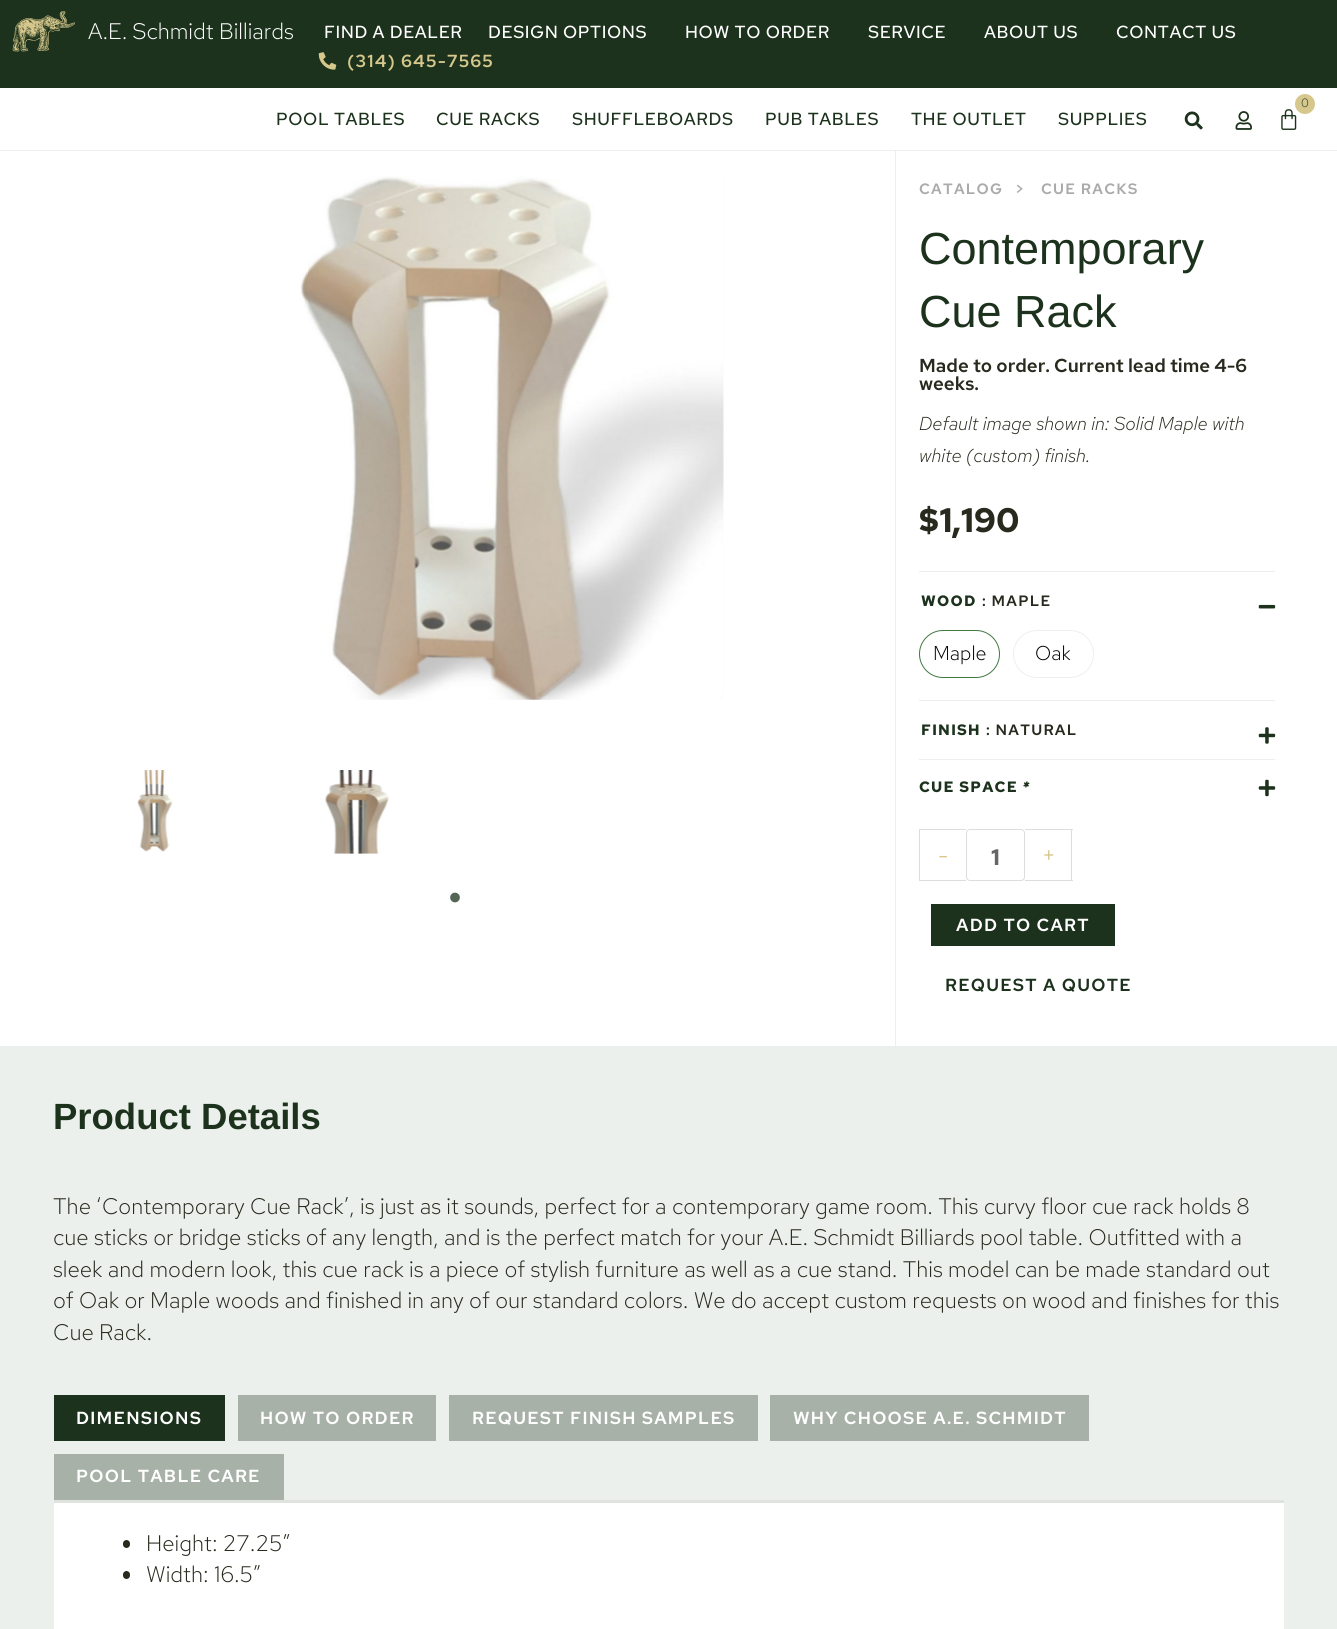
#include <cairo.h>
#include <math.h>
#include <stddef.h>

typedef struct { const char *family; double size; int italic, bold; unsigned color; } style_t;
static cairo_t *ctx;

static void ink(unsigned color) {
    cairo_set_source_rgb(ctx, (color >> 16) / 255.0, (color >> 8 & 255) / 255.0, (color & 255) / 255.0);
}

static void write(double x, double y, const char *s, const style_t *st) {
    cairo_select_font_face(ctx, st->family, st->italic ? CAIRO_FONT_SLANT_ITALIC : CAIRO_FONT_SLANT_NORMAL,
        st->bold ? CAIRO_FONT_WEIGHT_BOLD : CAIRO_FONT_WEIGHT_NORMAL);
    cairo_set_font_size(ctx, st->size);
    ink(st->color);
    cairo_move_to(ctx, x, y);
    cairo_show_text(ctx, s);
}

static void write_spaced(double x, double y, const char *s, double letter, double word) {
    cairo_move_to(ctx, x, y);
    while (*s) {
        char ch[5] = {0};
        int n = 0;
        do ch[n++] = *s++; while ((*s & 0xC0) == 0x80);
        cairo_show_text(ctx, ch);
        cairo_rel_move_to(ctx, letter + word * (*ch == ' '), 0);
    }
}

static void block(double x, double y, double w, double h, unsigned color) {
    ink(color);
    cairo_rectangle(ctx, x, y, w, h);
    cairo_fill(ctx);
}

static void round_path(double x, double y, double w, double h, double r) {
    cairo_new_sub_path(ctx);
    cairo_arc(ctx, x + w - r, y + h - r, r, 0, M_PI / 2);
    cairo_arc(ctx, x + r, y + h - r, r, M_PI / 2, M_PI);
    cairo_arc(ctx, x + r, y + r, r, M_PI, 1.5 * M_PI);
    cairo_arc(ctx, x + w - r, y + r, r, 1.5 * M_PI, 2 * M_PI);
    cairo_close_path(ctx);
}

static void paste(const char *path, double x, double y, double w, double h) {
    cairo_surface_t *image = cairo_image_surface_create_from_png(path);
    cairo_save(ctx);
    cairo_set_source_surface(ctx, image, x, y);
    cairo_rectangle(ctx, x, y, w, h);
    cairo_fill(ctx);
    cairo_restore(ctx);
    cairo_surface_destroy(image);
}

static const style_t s1 = {"Red Hat Text Light", 22.5, 0, 0, 0xffffff};
static const style_t s2 = {"Red Hat Text Light", 12, 0, 0, 0x1c321c};
static const style_t s3 = {"Liberation Sans", 45, 0, 0, 0x1c321c};
static const style_t s4 = {"Red Hat Text SemiBold", 18.75, 0, 0, 0x272a1d};
static const style_t s5 = {"Red Hat Text Light", 18.75, 1, 0, 0x272a1d};
static const style_t s6 = {"Red Hat Text", 34, 0, 1, 0x272a1d};
static const style_t s7 = {"Red Hat Text Light", 20, 0, 0, 0x000000};
static const style_t s8 = {"Red Hat Text", 22.5, 0, 0, 0xd6c78c};
static const style_t s9 = {"Red Hat Text", 22.5, 0, 1, 0x666666};
static const style_t s10 = {"Liberation Sans", 36.5, 0, 1, 0x1c321c};
static const style_t s11 = {"Red Hat Text Light", 22.5, 0, 0, 0x272a1d};

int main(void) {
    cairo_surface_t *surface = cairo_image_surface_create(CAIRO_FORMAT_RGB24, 1337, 1629);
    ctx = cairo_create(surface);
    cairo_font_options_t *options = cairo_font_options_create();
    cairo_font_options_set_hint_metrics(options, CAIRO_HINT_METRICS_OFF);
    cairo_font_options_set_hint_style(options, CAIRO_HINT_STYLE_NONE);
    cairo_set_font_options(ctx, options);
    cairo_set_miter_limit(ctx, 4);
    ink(0xffffff);
    cairo_paint(ctx);
    block(0, 150, 1337, 1, 0xeeeeee);
    block(0, 0, 1337, 88, 0x1c321c);
    paste("pic1.png", 12, 11, 63, 41);
    write(88, 39, "A.E. Schmidt Billiards", &s1);
    cairo_select_font_face(ctx, "Red Hat Text Medium", CAIRO_FONT_SLANT_NORMAL, CAIRO_FONT_WEIGHT_NORMAL);
    cairo_set_font_size(ctx, 17.5);
    write_spaced(324, 38, "FIND A DEALER", 0.6, 0);
    write_spaced(488, 38, "DESIGN OPTIONS", 0.6, 0);
    write_spaced(685, 38, "HOW TO ORDER", 0.6, 0);
    write_spaced(868, 38, "SERVICE", 0.6, 0);
    write_spaced(984, 38, "ABOUT US", 0.6, 0);
    write_spaced(1116, 38, "CONTACT US", 0.6, 0);
    paste("pic2.png", 318, 52, 19, 18);
    cairo_select_font_face(ctx, "Red Hat Text SemiBold", CAIRO_FONT_SLANT_NORMAL, CAIRO_FONT_WEIGHT_NORMAL);
    ink(0xd6c78c);
    write_spaced(347, 67, "(314) 645-7565", 1.25, 0);
    paste("pic3.png", 1281, 109, 16, 21);
    cairo_arc(ctx, 1305, 104, 10, 0, 2 * M_PI);
    cairo_fill(ctx);
    write(1301, 107, "0", &s2);
    cairo_select_font_face(ctx, "Red Hat Text Medium", CAIRO_FONT_SLANT_NORMAL, CAIRO_FONT_WEIGHT_NORMAL);
    cairo_set_font_size(ctx, 17.5);
    write_spaced(276, 125, "POOL TABLES", 0.6, 0);
    write_spaced(436, 125, "CUE RACKS", 0.6, 0);
    write_spaced(572, 125, "SHUFFLEBOARDS", 0.6, 0);
    write_spaced(765, 125, "PUB TABLES", 0.6, 0);
    write_spaced(911, 125, "THE OUTLET", 0.6, 0);
    write_spaced(1058, 125, "SUPPLIES", 0.6, 0);
    paste("pic4.png", 1184, 111, 19, 19);
    paste("pic5.png", 1235, 111, 17, 19);
    paste("pic6.png", 300, 176, 424, 524);
    paste("pic7.png", 137, 770, 36, 82);
    paste("pic8.png", 325, 770, 64, 84);
    paste("pic9.png", 450, 892, 10, 11);
    block(895, 151, 1, 895, 0xecf0ec);
    cairo_select_font_face(ctx, "Red Hat Text SemiBold", CAIRO_FONT_SLANT_NORMAL, CAIRO_FONT_WEIGHT_NORMAL);
    cairo_set_font_size(ctx, 15);
    ink(0xaaaaaa);
    write_spaced(919, 194, "CATALOG", 1.25, 0);
    write_spaced(1015, 194, ">", 1.25, 0);
    write_spaced(1041, 194, "CUE RACKS", 1.25, 0);
    write(919, 264, "Contemporary", &s3);
    write(919, 327, "Cue Rack", &s3);
    write(919, 372, "Made to order. Current lead time 4-6", &s4);
    write(919, 390, "weeks.", &s4);
    write(919, 430, "Default image shown in: Solid Maple with", &s5);
    write(919, 462, "white (custom) finish.", &s5);
    write(919, 532, "$1,190", &s6);
    block(919, 571, 356, 1, 0xecf0ec);
    cairo_set_font_size(ctx, 15);
    ink(0x1c321c);
    write_spaced(921, 606, "WOOD", 1.25, 0);
    cairo_select_font_face(ctx, "Red Hat Text SemiBold", CAIRO_FONT_SLANT_NORMAL, CAIRO_FONT_WEIGHT_NORMAL);
    ink(0x272a1d);
    write_spaced(982, 606, ": MAPLE", 1.25, 0);
    paste("pic10.png", 1258, 604, 18, 5);
    round_path(919.5, 630.5, 80, 47, 23.5);
    ink(0x437843);
    cairo_set_line_width(ctx, 1);
    cairo_stroke(ctx);
    write(933, 660, "Maple", &s7);
    round_path(1013.5, 630.5, 80, 47, 23.5);
    ink(0xecf0ec);
    cairo_stroke(ctx);
    write(1035, 660, "Oak", &s7);
    block(919, 700, 356, 1, 0xecf0ec);
    cairo_select_font_face(ctx, "Red Hat Text", CAIRO_FONT_SLANT_NORMAL, CAIRO_FONT_WEIGHT_BOLD);
    cairo_set_font_size(ctx, 15);
    ink(0x1c321c);
    write_spaced(921, 735, "FINISH", 1.25, 0);
    cairo_select_font_face(ctx, "Red Hat Text SemiBold", CAIRO_FONT_SLANT_NORMAL, CAIRO_FONT_WEIGHT_NORMAL);
    ink(0x272a1d);
    write_spaced(986, 735, ": NATURAL", 1.25, 0);
    paste("pic11.png", 1258, 727, 18, 17);
    block(919, 759, 356, 1, 0xecf0ec);
    cairo_select_font_face(ctx, "Red Hat Text", CAIRO_FONT_SLANT_NORMAL, CAIRO_FONT_WEIGHT_BOLD);
    ink(0x1c321c);
    write_spaced(919, 792, "CUE SPACE", 1.25, 0);
    cairo_select_font_face(ctx, "Red Hat Text", CAIRO_FONT_SLANT_ITALIC, CAIRO_FONT_WEIGHT_BOLD);
    write_spaced(1022, 792, "*", 1.25, 0);
    paste("pic12.png", 1258, 779, 18, 18);
    block(919, 829, 47, 1, 0xdddddd);
    block(919, 880, 47, 1, 0xdddddd);
    block(919, 829, 1, 52, 0xdddddd);
    write(938, 863, "-", &s8);
    round_path(966.5, 829.5, 58, 51, 3.5);
    ink(0xdddddd);
    cairo_stroke(ctx);
    write(991, 865, "1", &s9);
    block(1025, 829, 48, 1, 0xdddddd);
    block(1071, 829, 1, 52, 0xdddddd);
    block(1025, 880, 48, 1, 0xdddddd);
    write(1042, 863, "+", &s8);
    block(931, 904, 184, 42, 0x1c321c);
    cairo_select_font_face(ctx, "Red Hat Text SemiBold", CAIRO_FONT_SLANT_NORMAL, CAIRO_FONT_WEIGHT_NORMAL);
    cairo_set_font_size(ctx, 17.5);
    ink(0xffffff);
    write_spaced(956, 931, "ADD TO CART", 1.25, 0);
    ink(0x1c321c);
    write_spaced(945, 991, "REQUEST A QUOTE", 1.25, 0);
    block(0, 1046, 1337, 583, 0xecf0ec);
    write(53, 1129, "Product Details", &s10);
    write(53, 1214, "The ‘Contemporary Cue Rack’, is just as it sounds, perfect for a contemporary game room. This curvy floor cue rack holds 8", &s11);
    write(53, 1245, "cue sticks or bridge sticks of any length, and is the perfect match for your A.E. Schmidt Billiards pool table. Outfitted with a", &s11);
    write(53, 1277, "sleek and modern look, this cue rack is a piece of stylish furniture as well as a cue stand. This model can be made standard out", &s11);
    write(53, 1308, "of Oak or Maple woods and finished in any of our standard colors. We do accept custom requests on wood and finishes for this", &s11);
    write(53, 1340, "Cue Rack.", &s11);
    block(54, 1500, 1230, 3, 0xdee3de);
    block(54, 1395, 171, 46, 0x1c321c);
    cairo_select_font_face(ctx, "Red Hat Text SemiBold", CAIRO_FONT_SLANT_NORMAL, CAIRO_FONT_WEIGHT_NORMAL);
    cairo_set_font_size(ctx, 17.5);
    ink(0xffffff);
    write_spaced(76, 1424, "DIMENSIONS", 1.25, 0);
    block(238, 1395, 198, 46, 0xa7b1a7);
    ink(0xffffff);
    write_spaced(260, 1424, "HOW TO ORDER", 1.25, 0);
    block(449, 1395, 309, 46, 0xa7b1a7);
    ink(0xffffff);
    write_spaced(472, 1424, "REQUEST FINISH SAMPLES", 1.25, 0);
    block(770, 1395, 319, 46, 0xa7b1a7);
    ink(0xffffff);
    write_spaced(793, 1424, "WHY CHOOSE A.E. SCHMIDT", 1.25, 0);
    block(54, 1454, 230, 46, 0xa7b1a7);
    ink(0xffffff);
    write_spaced(76, 1482, "POOL TABLE CARE", 1.25, 0);
    block(54, 1503, 1230, 126, 0xffffff);
    ink(0x272a1d);
    round_path(123, 1540, 7, 8, 3.5);
    cairo_fill(ctx);
    write(146, 1551, "Height: 27.25″", &s11);
    round_path(123, 1571, 7, 8, 3.5);
    cairo_fill(ctx);
    write(146, 1582, "Width: 16.5″", &s11);
    cairo_surface_write_to_png(surface, "screenshot.png");
    cairo_font_options_destroy(options);
    cairo_destroy(ctx);
    cairo_surface_destroy(surface);
    return 0;
}
